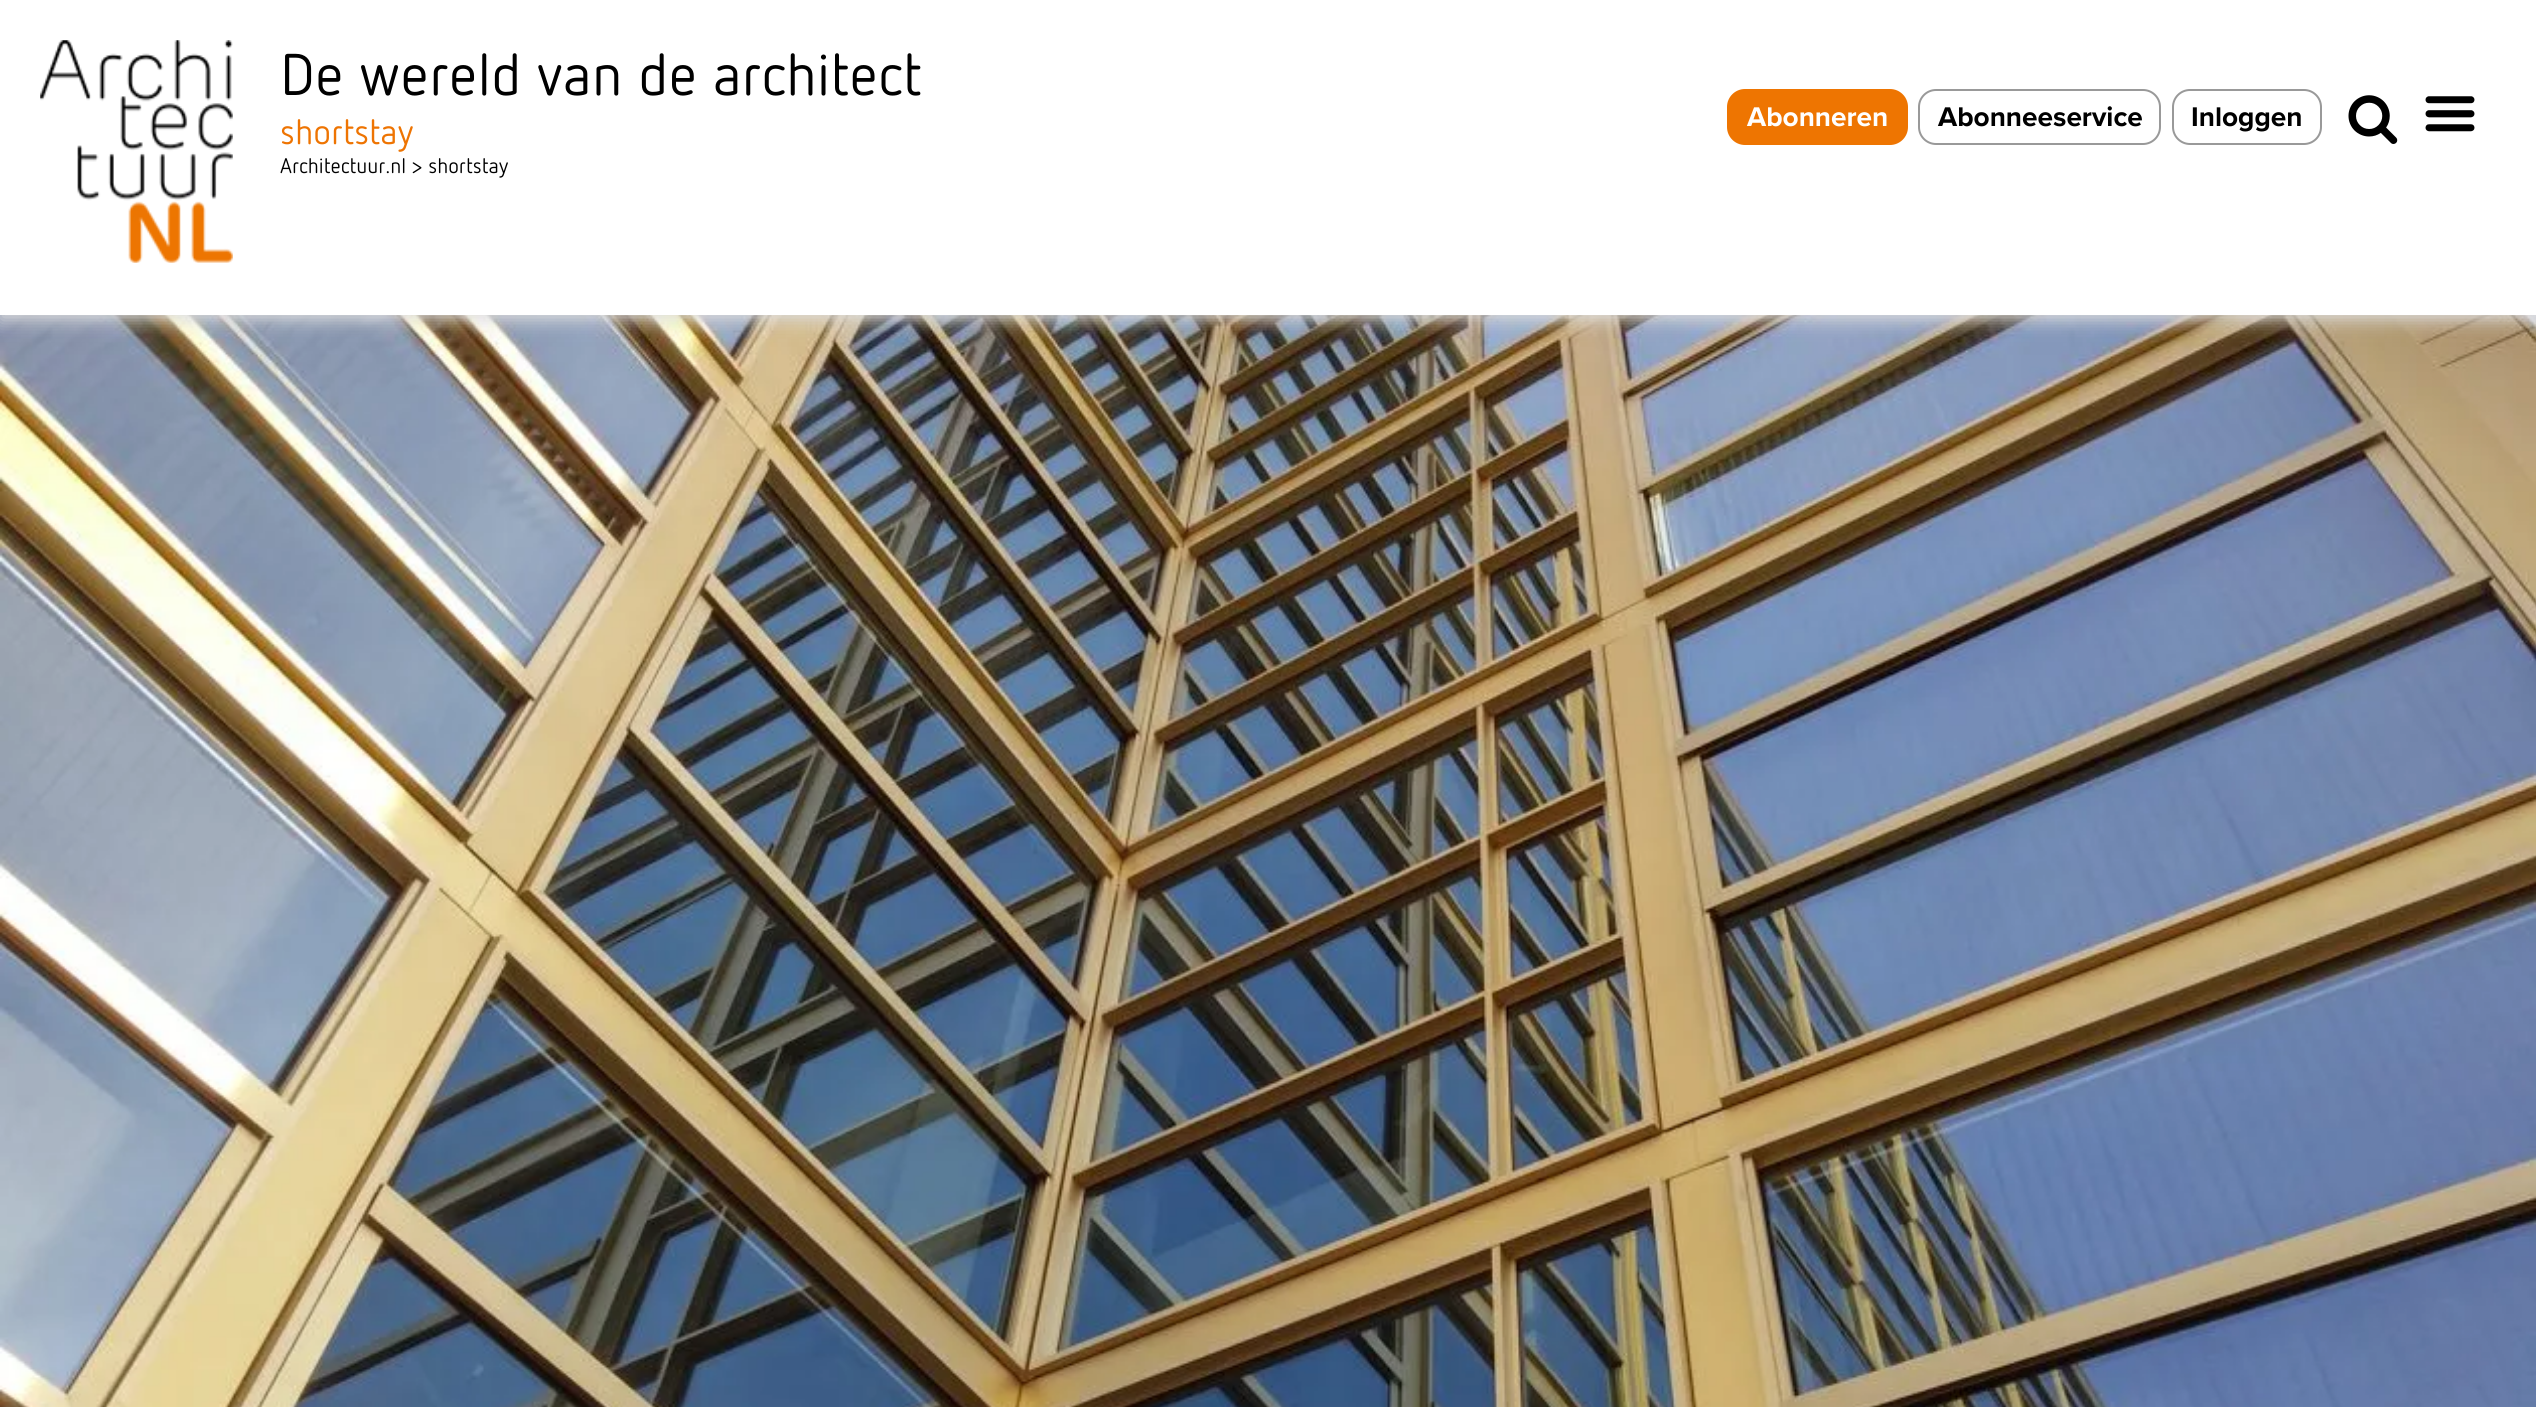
#include <cairo.h>
#include <math.h>
#include <stddef.h>

typedef struct { const char *family; double size; int italic, bold; unsigned color; } style_t;
static cairo_t *ctx;

static void ink(unsigned color) {
    cairo_set_source_rgb(ctx, (color >> 16) / 255.0, (color >> 8 & 255) / 255.0, (color & 255) / 255.0);
}

static void write(double x, double y, const char *s, const style_t *st) {
    cairo_select_font_face(ctx, st->family, st->italic ? CAIRO_FONT_SLANT_ITALIC : CAIRO_FONT_SLANT_NORMAL,
        st->bold ? CAIRO_FONT_WEIGHT_BOLD : CAIRO_FONT_WEIGHT_NORMAL);
    cairo_set_font_size(ctx, st->size);
    ink(st->color);
    cairo_move_to(ctx, x, y);
    cairo_show_text(ctx, s);
}

static void block(double x, double y, double w, double h, unsigned color) {
    ink(color);
    cairo_rectangle(ctx, x, y, w, h);
    cairo_fill(ctx);
}

static void round_path(double x, double y, double w, double h, double r) {
    cairo_new_sub_path(ctx);
    cairo_arc(ctx, x + w - r, y + h - r, r, 0, M_PI / 2);
    cairo_arc(ctx, x + r, y + h - r, r, M_PI / 2, M_PI);
    cairo_arc(ctx, x + r, y + r, r, M_PI, 1.5 * M_PI);
    cairo_arc(ctx, x + w - r, y + r, r, 1.5 * M_PI, 2 * M_PI);
    cairo_close_path(ctx);
}

static void blur_box(double x, double y, double w, double h, double r, double blur, double alpha) {
    cairo_push_group_with_content(ctx, CAIRO_CONTENT_ALPHA);
    cairo_set_operator(ctx, CAIRO_OPERATOR_SOURCE);
    for (int i = 15; i >= -15 && fmin(w, h) + blur * i / 3 > 0; i -= 2) {
        double e = blur * i / 6;
        cairo_set_source_rgba(ctx, 0, 0, 0, alpha * erfc((i - 1) / 8.5) / 2);
        round_path(x - e, y - e, w + 2 * e, h + 2 * e, fmax(0, fmin(r + e + blur * .6, fmin(w, h) / 2 + e)));
        cairo_fill(ctx);
    }
    cairo_pattern_t *soft = cairo_pop_group(ctx);
    cairo_mask(ctx, soft);
    cairo_pattern_destroy(soft);
}

static void paste(const char *path, double x, double y, double w, double h) {
    cairo_surface_t *image = cairo_image_surface_create_from_png(path);
    cairo_save(ctx);
    cairo_set_source_surface(ctx, image, x, y);
    cairo_rectangle(ctx, x, y, w, h);
    cairo_fill(ctx);
    cairo_restore(ctx);
    cairo_surface_destroy(image);
}

static const style_t s1 = {"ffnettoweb", 58.75, 0, 0, 0x000000};
static const style_t s2 = {"ffnettoweb", 35, 0, 0, 0xee7402};
static const style_t s3 = {"ffnettoweb", 21, 0, 0, 0x000000};
static const style_t s4 = {"Proxima Nova", 28, 0, 1, 0xffffff};
static const style_t s5 = {"Proxima Nova", 28, 0, 1, 0x000000};

int main(void) {
    cairo_surface_t *surface = cairo_image_surface_create(CAIRO_FORMAT_RGB24, 2536, 1407);
    ctx = cairo_create(surface);
    cairo_font_options_t *options = cairo_font_options_create();
    cairo_font_options_set_hint_metrics(options, CAIRO_HINT_METRICS_OFF);
    cairo_font_options_set_hint_style(options, CAIRO_HINT_STYLE_NONE);
    cairo_set_font_options(ctx, options);
    cairo_set_miter_limit(ctx, 4);
    ink(0xffffff);
    cairo_paint(ctx);
    paste("pic4.png", 0, 315, 2536, 1092);
    ink(0xdddddd);
    blur_box(0, 5, 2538, 315, 0, 9, 1);
    block(0, 0, 2536, 315, 0xffffff);
    write(280, 95, "De wereld van de architect", &s1);
    write(280, 144, "shortstay", &s2);
    write(280, 173, "Architectuur.nl > shortstay", &s3);
    paste("pic1.png", 40, 40, 193, 223);
    ink(0xee7501);
    round_path(1728, 90, 179, 54, 17);
    cairo_fill_preserve(ctx);
    cairo_stroke(ctx);
    write(1747, 126, "Abonneren", &s4);
    round_path(1919, 90, 241, 54, 17);
    ink(0x999999);
    cairo_stroke(ctx);
    write(1938, 126, "Abonneeservice", &s5);
    round_path(2173, 90, 148, 54, 17);
    ink(0x999999);
    cairo_stroke(ctx);
    write(2191, 126, "Inloggen", &s5);
    paste("pic2.png", 2348, 95, 50, 49);
    paste("pic3.png", 2425, 96, 50, 36);
    cairo_surface_write_to_png(surface, "screenshot.png");
    cairo_font_options_destroy(options);
    cairo_destroy(ctx);
    cairo_surface_destroy(surface);
    return 0;
}
